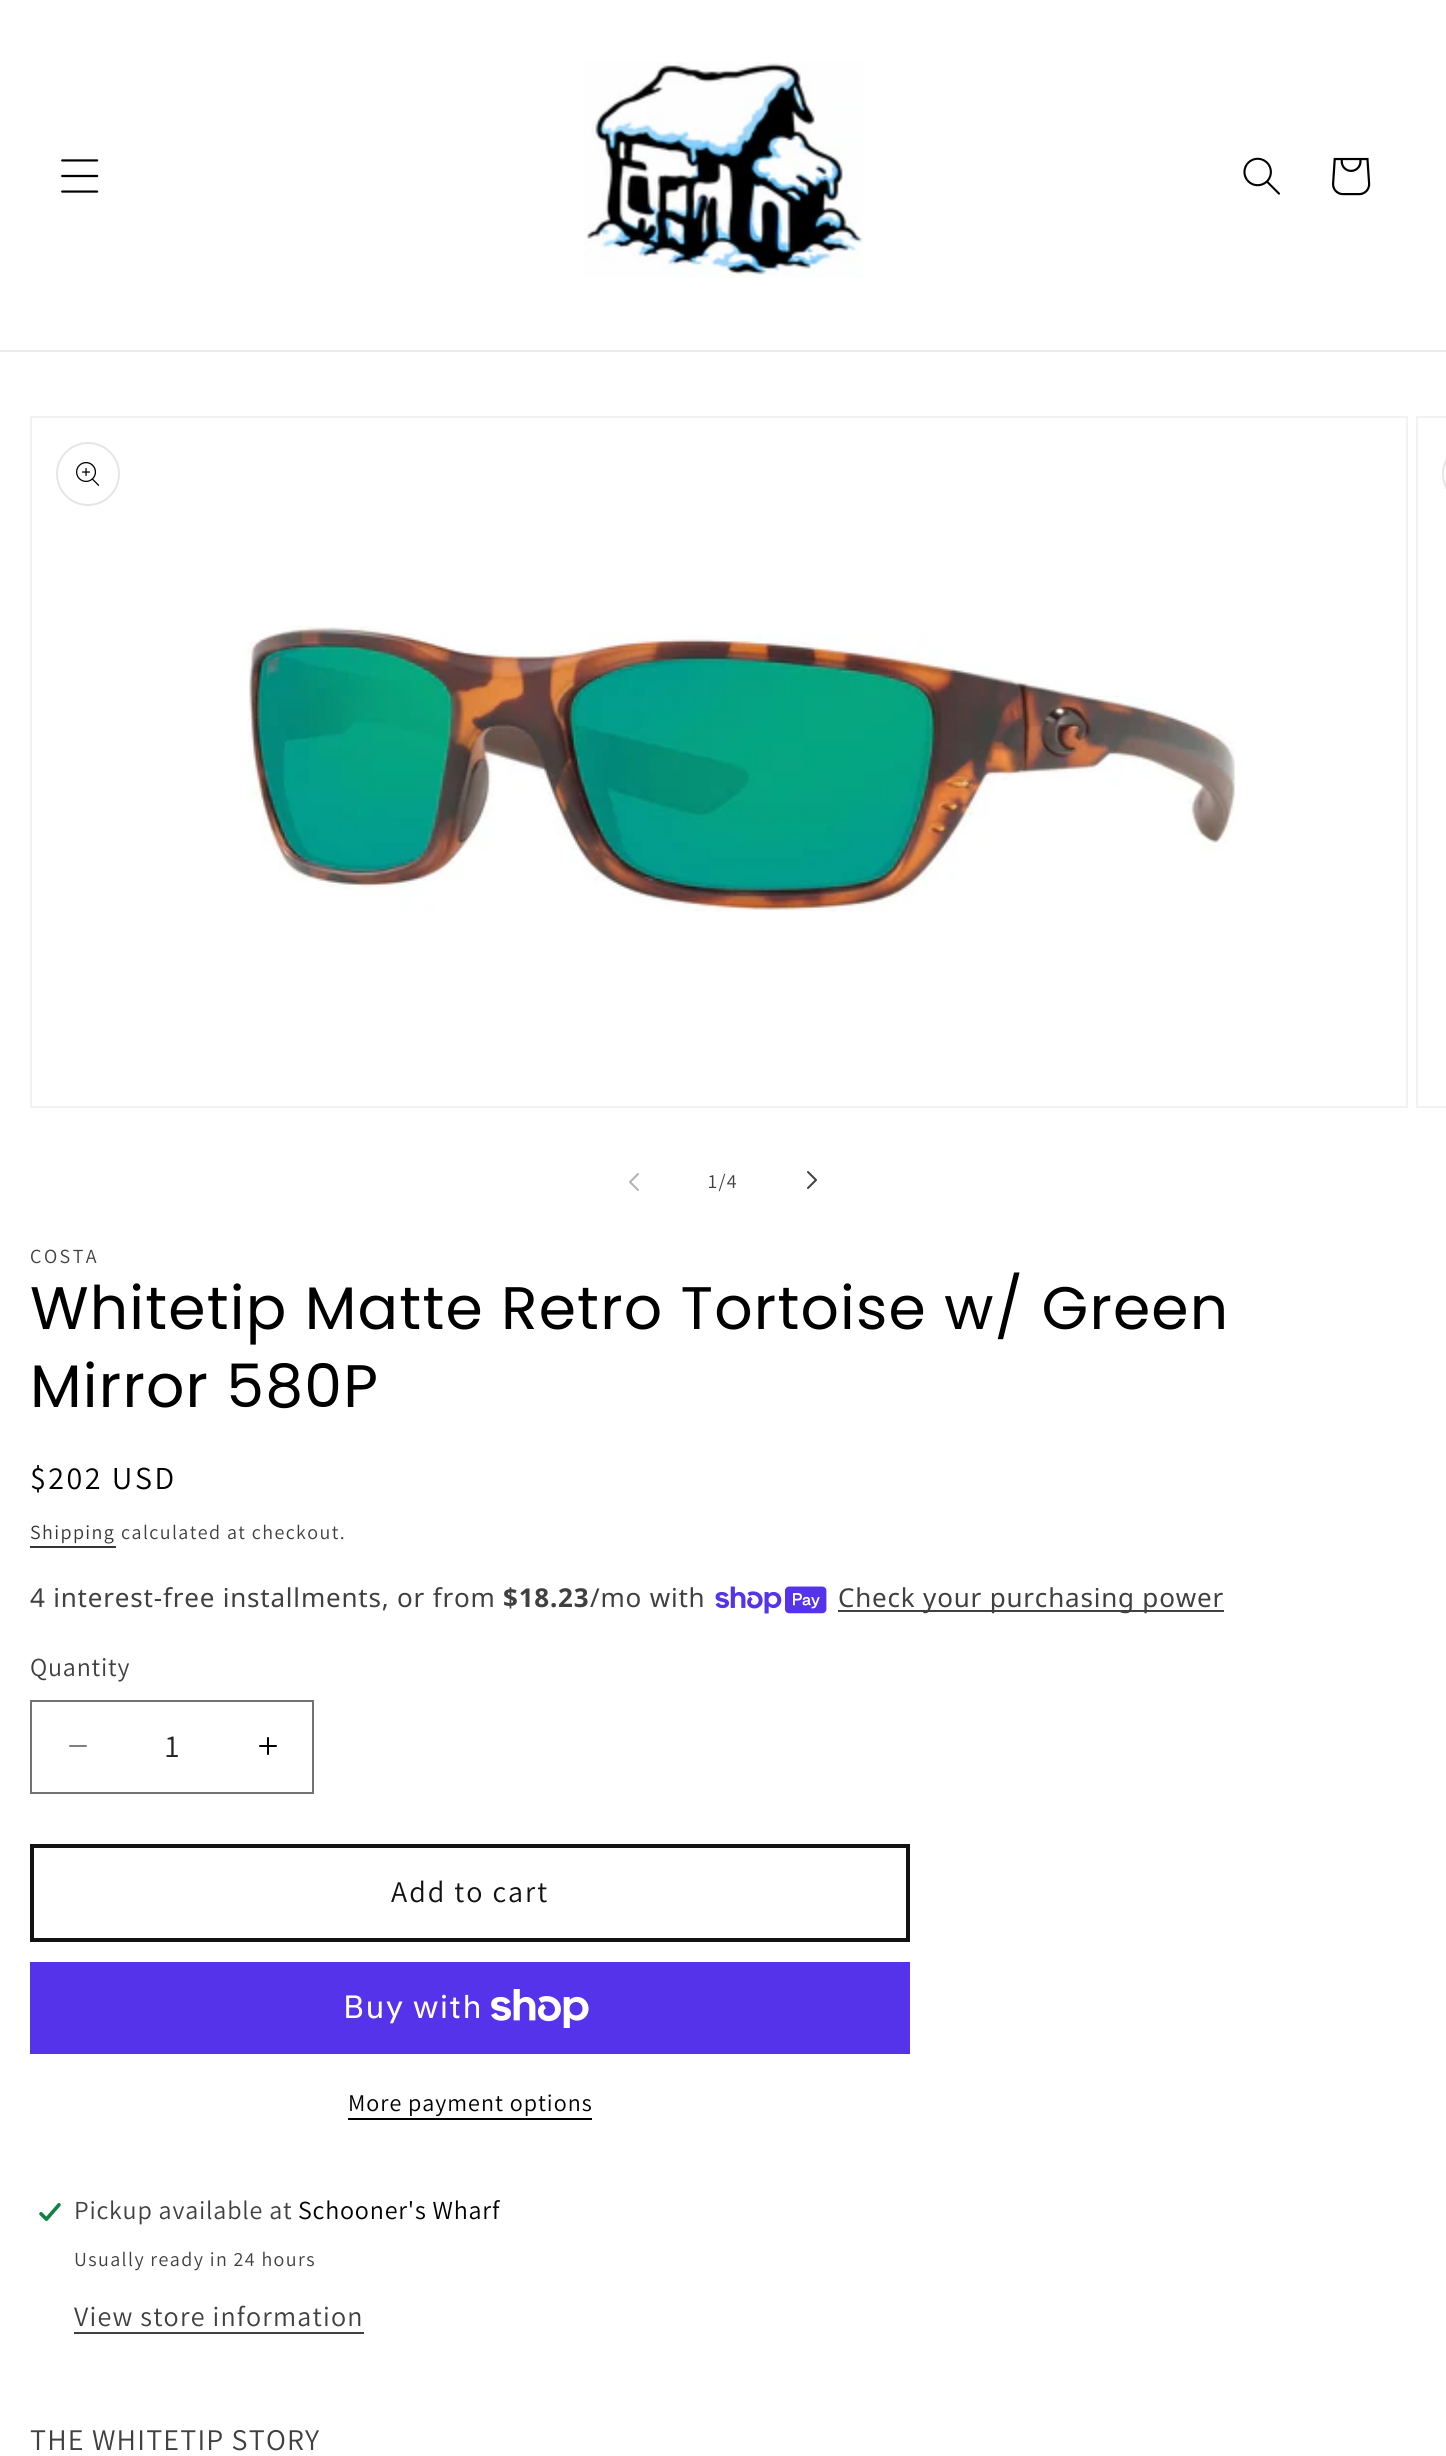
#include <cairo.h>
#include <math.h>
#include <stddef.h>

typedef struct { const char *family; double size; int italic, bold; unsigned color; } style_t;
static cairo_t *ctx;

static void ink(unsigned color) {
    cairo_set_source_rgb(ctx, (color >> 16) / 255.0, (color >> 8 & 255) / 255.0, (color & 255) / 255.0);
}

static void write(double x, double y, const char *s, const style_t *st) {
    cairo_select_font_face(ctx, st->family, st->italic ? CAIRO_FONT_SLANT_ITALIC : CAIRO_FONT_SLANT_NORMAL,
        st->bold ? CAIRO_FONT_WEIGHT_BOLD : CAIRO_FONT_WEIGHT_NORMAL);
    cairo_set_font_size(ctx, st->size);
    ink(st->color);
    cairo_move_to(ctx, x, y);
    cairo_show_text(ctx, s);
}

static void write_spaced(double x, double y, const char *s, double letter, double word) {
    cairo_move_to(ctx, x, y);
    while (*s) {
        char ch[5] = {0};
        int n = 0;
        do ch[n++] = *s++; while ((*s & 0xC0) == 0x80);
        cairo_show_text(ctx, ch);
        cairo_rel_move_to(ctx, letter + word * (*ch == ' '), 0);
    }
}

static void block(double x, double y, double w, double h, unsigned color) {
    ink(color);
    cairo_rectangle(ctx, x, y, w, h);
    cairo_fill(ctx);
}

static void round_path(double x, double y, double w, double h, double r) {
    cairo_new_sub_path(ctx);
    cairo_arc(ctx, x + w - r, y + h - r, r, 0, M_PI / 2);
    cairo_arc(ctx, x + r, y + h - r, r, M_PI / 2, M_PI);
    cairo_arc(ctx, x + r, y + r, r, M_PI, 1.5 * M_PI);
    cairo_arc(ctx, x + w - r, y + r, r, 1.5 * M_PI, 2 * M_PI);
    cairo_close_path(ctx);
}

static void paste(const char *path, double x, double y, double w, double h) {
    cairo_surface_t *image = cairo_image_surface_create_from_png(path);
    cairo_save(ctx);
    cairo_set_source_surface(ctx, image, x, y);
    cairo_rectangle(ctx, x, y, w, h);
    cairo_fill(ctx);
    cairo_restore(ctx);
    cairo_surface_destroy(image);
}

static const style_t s1 = {"Assistant", 32, 0, 0, 0x262626};

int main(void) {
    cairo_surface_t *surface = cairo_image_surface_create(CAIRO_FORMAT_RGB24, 1446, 2456);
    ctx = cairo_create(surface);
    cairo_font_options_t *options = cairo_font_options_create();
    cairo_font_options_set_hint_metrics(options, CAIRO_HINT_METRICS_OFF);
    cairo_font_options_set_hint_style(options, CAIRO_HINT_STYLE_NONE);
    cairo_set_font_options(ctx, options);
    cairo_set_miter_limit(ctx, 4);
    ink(0xffffff);
    cairo_paint(ctx);
    block(0, 350, 1446, 2, 0xebebeb);
    paste("pic1.png", 61, 159, 38, 34);
    paste("pic2.png", 584, 62, 280, 216);
    paste("pic3.png", 1243, 157, 37, 38);
    paste("pic4.png", 1332, 157, 39, 39);
    cairo_rectangle(ctx, 31, 417, 1376, 690);
    ink(0xf2f2f2);
    cairo_stroke(ctx);
    cairo_arc(ctx, 88, 474, 31, 0, 2 * M_PI);
    ink(0xe6e6e6);
    cairo_stroke(ctx);
    paste("pic5.png", 76, 462, 24, 24);
    paste("pic6.png", 247, 626, 989, 286);
    cairo_rectangle(ctx, 1417, 417, 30, 690);
    ink(0xf2f2f2);
    cairo_stroke(ctx);
    round_path(1443, 443, 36, 62, 31);
    ink(0xe6e6e6);
    cairo_stroke(ctx);
    paste("pic7.png", 629, 1173, 10, 18);
    cairo_select_font_face(ctx, "Assistant", CAIRO_FONT_SLANT_NORMAL, CAIRO_FONT_WEIGHT_NORMAL);
    cairo_set_font_size(ctx, 20);
    ink(0x404040);
    write_spaced(708, 1188, "1/4", 1.4, 0);
    paste("pic8.png", 807, 1171, 10, 18);
    write_spaced(30, 1263, "COSTA", 2.5, 0);
    cairo_select_font_face(ctx, "Poppins", CAIRO_FONT_SLANT_NORMAL, CAIRO_FONT_WEIGHT_NORMAL);
    cairo_set_font_size(ctx, 60);
    ink(0x000000);
    write_spaced(30, 1329, "Whitetip Matte Retro Tortoise w/ Green", 1.2, 0);
    write_spaced(30, 1407, "Mirror 580P", 1.2, 0);
    cairo_select_font_face(ctx, "Assistant", CAIRO_FONT_SLANT_NORMAL, CAIRO_FONT_WEIGHT_NORMAL);
    cairo_set_font_size(ctx, 32);
    write_spaced(30, 1489, "$202 USD", 2.5, 0);
    cairo_set_font_size(ctx, 20);
    ink(0x363636);
    write_spaced(30, 1539, "Shipping", 1.4, 0);
    block(30, 1546, 86, 2, 0x363636);
    ink(0x404040);
    write_spaced(121, 1539, "calculated at checkout.", 1.4, 0);
    cairo_select_font_face(ctx, "Noto Sans", CAIRO_FONT_SLANT_NORMAL, CAIRO_FONT_WEIGHT_NORMAL);
    cairo_set_font_size(ctx, 26);
    write_spaced(30, 1607, "4 interest-free installments, or from", 0.8, 0);
    cairo_select_font_face(ctx, "Noto Sans", CAIRO_FONT_SLANT_NORMAL, CAIRO_FONT_WEIGHT_BOLD);
    write_spaced(503, 1607, "$18.23", 0.8, 0);
    cairo_select_font_face(ctx, "Noto Sans", CAIRO_FONT_SLANT_NORMAL, CAIRO_FONT_WEIGHT_NORMAL);
    write_spaced(590, 1607, "/mo with", 0.8, 0);
    paste("pic9.png", 715, 1586, 112, 28);
    block(838, 1610, 386, 2, 0x404040);
    write_spaced(838, 1607, "Check your purchasing power", 0.8, 0);
    cairo_select_font_face(ctx, "Assistant", CAIRO_FONT_SLANT_NORMAL, CAIRO_FONT_WEIGHT_NORMAL);
    write_spaced(30, 1676, "Quantity", 0.8, 0);
    paste("pic10.png", 69, 1745, 18, 2);
    paste("pic11.png", 259, 1737, 18, 18);
    cairo_rectangle(ctx, 31, 1701, 282, 92);
    ink(0x737373);
    cairo_stroke(ctx);
    write(165, 1757, "1", &s1);
    cairo_rectangle(ctx, 32, 1846, 876, 94);
    ink(0x121212);
    cairo_set_line_width(ctx, 4);
    cairo_stroke(ctx);
    cairo_set_font_size(ctx, 30);
    write_spaced(391, 1902, "Add to cart", 2, 0);
    block(30, 1962, 880, 92, 0x5433eb);
    cairo_select_font_face(ctx, "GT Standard", CAIRO_FONT_SLANT_NORMAL, CAIRO_FONT_WEIGHT_NORMAL);
    cairo_set_font_size(ctx, 32);
    ink(0xffffff);
    write_spaced(343, 2018, "Buy with", 1.2, 0);
    paste("pic12.png", 491, 1989, 98, 39);
    cairo_select_font_face(ctx, "Assistant", CAIRO_FONT_SLANT_NORMAL, CAIRO_FONT_WEIGHT_NORMAL);
    cairo_set_font_size(ctx, 24);
    ink(0x000000);
    write_spaced(348, 2111, "More payment options", 1, 0);
    block(348, 2118, 244, 2, 0x000000);
    paste("pic13.png", 39, 2203, 22, 18);
    cairo_set_font_size(ctx, 26);
    ink(0x404040);
    write_spaced(74, 2219, "Pickup available at", 0.8, 0);
    ink(0x000000);
    write_spaced(298, 2219, "Schooner's Wharf", 0.8, 0);
    cairo_set_font_size(ctx, 20);
    ink(0x404040);
    write_spaced(74, 2266, "Usually ready in 24 hours", 1.4, 0);
    cairo_set_font_size(ctx, 28);
    write_spaced(74, 2326, "View store information", 1.2, 0);
    block(74, 2332, 290, 2, 0x404040);
    cairo_set_font_size(ctx, 30);
    write_spaced(30, 2450, "THE WHITETIP STORY", 1.2, 0);
    cairo_surface_write_to_png(surface, "screenshot.png");
    cairo_font_options_destroy(options);
    cairo_destroy(ctx);
    cairo_surface_destroy(surface);
    return 0;
}
